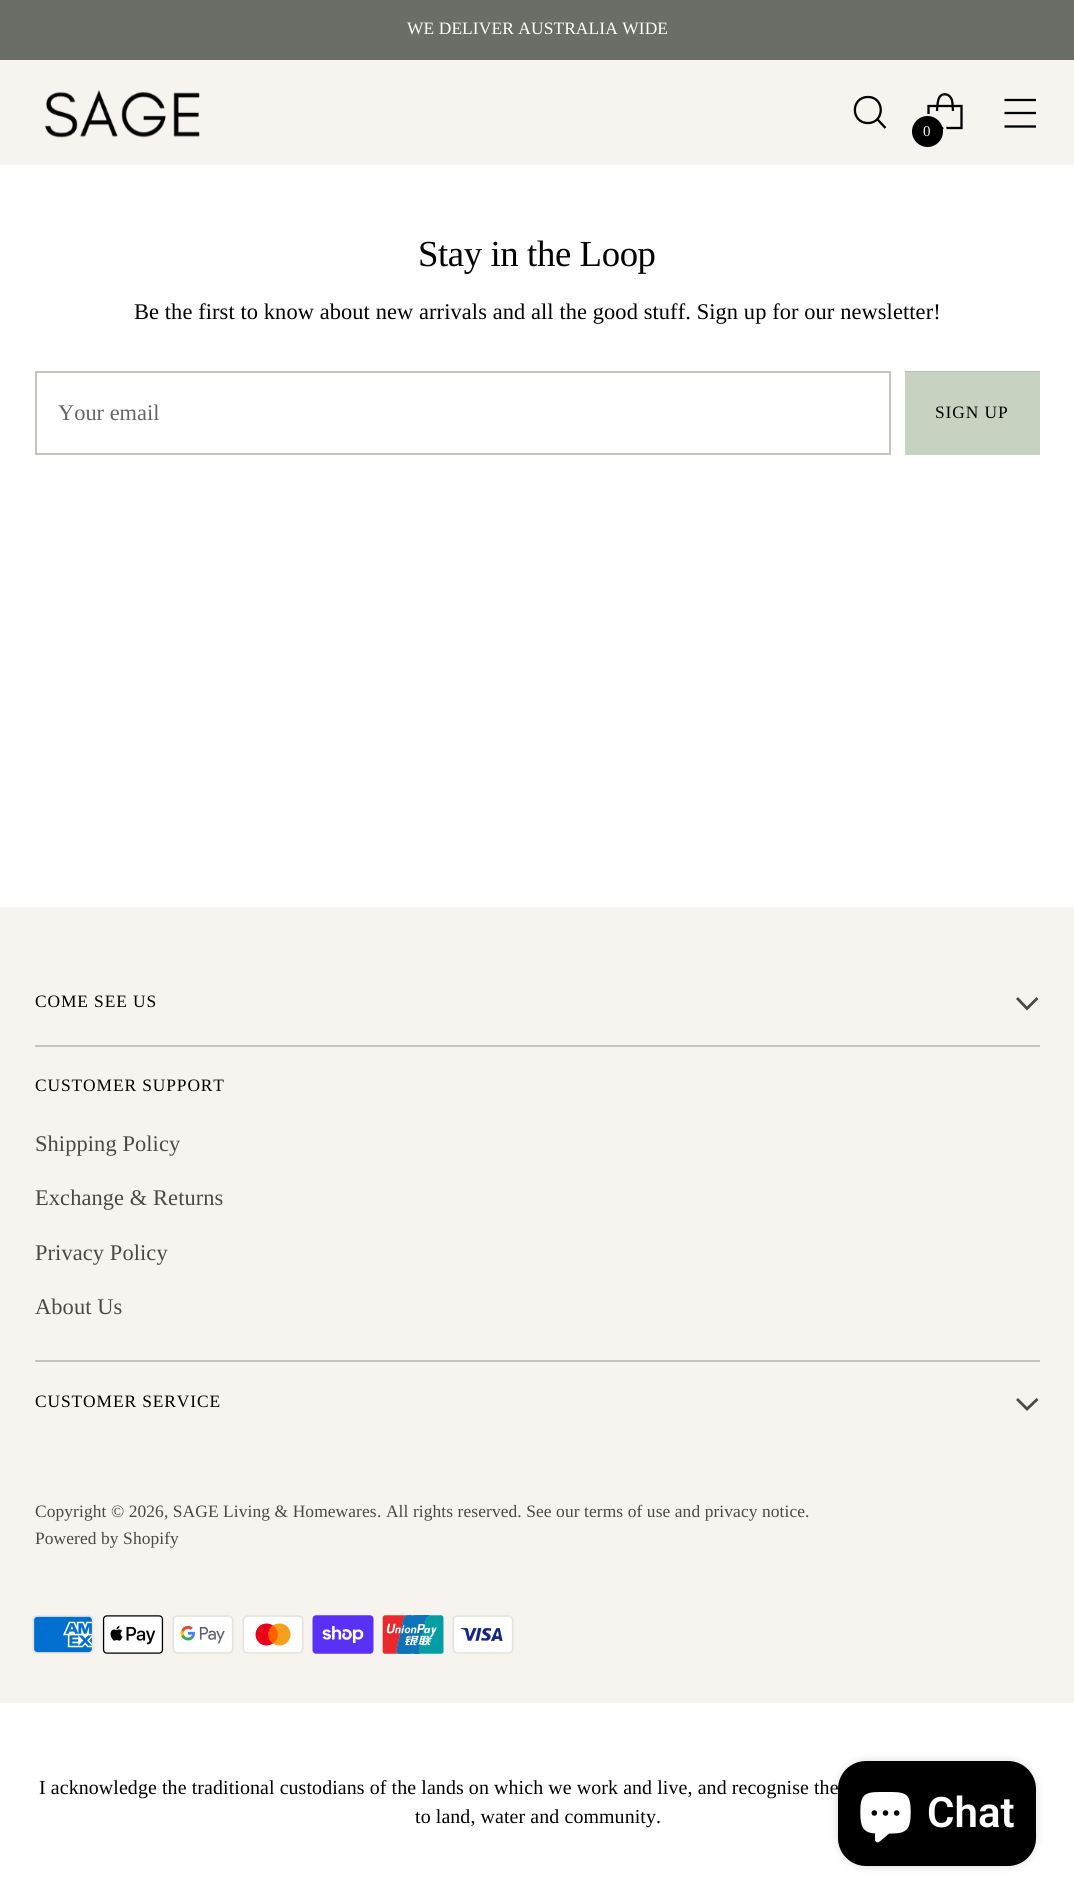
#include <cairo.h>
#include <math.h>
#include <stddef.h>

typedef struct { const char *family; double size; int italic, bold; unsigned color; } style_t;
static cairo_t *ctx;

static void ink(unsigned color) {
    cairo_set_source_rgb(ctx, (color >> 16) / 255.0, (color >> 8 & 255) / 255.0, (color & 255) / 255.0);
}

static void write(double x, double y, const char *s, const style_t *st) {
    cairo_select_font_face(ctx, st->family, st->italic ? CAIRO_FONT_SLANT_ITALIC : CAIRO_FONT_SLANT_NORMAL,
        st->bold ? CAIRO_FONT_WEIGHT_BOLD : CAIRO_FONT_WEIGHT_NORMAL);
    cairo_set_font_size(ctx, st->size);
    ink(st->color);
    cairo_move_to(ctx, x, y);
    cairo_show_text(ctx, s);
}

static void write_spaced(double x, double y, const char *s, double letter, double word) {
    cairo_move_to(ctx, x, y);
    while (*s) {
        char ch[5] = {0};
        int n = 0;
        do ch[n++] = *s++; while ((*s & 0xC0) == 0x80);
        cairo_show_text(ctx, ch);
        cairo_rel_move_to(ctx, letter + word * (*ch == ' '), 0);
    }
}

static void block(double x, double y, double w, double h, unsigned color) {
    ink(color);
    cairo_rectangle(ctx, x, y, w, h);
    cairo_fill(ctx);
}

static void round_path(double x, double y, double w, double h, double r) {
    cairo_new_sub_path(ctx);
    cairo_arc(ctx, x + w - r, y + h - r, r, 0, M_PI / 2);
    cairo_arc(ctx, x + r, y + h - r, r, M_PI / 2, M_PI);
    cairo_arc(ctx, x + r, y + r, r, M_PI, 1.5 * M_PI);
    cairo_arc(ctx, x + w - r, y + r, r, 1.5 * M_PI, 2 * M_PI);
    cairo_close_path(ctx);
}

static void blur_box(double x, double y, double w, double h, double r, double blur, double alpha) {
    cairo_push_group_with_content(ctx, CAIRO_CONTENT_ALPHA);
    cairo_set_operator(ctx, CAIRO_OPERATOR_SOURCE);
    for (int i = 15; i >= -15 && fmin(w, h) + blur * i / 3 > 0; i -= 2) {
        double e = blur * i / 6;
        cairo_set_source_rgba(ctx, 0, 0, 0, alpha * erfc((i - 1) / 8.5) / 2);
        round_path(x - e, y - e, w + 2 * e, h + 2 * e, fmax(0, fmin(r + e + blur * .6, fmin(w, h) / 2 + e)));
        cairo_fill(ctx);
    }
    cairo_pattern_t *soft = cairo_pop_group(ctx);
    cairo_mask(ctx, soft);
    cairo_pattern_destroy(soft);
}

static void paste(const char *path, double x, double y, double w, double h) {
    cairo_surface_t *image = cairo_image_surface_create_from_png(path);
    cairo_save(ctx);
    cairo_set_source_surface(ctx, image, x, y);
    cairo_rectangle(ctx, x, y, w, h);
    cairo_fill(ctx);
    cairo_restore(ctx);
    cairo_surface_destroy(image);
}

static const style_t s1 = {"Liberation Serif", 22.4, 0, 0, 0x666666};
static const style_t s2 = {"Roboto SemiBold", 42, 0, 0, 0xffffff};

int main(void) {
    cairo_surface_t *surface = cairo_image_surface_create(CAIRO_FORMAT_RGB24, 1074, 1902);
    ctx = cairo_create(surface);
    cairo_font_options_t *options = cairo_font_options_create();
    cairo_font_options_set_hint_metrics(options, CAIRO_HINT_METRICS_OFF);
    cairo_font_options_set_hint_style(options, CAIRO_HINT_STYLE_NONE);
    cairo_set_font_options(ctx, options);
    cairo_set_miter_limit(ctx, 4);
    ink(0xffffff);
    cairo_paint(ctx);
    block(0, 0, 1074, 60, 0x6b6e66);
    cairo_select_font_face(ctx, "Liberation Serif", CAIRO_FONT_SLANT_NORMAL, CAIRO_FONT_WEIGHT_NORMAL);
    cairo_set_font_size(ctx, 17.4);
    ink(0xffffff);
    write_spaced(407, 34, "WE DELIVER AUSTRALIA WIDE", 0.1, 0);
    block(0, 60, 1074, 105, 0xf7f4ef);
    paste("pic1.png", 45, 90, 155, 48);
    cairo_new_path(ctx);
    cairo_move_to(ctx, 868, 123);
    cairo_curve_to(ctx, 885, 123, 885, 97, 868, 97);
    cairo_curve_to(ctx, 850.5, 97, 850.5, 123, 868, 123);
    cairo_close_path(ctx);
    ink(0x000000);
    cairo_set_line_width(ctx, 2.3);
    cairo_set_line_cap(ctx, CAIRO_LINE_CAP_ROUND);
    cairo_stroke(ctx);
    cairo_new_path(ctx);
    cairo_move_to(ctx, 877.5, 119.5);
    cairo_line_to(ctx, 885.5, 128);
    cairo_set_line_cap(ctx, CAIRO_LINE_CAP_BUTT);
    cairo_stroke(ctx);
    cairo_new_path(ctx);
    cairo_move_to(ctx, 1004.5, 113);
    cairo_line_to(ctx, 1036, 113);
    cairo_move_to(ctx, 1004.5, 100);
    cairo_line_to(ctx, 1036, 100);
    cairo_move_to(ctx, 1004.5, 126.5);
    cairo_line_to(ctx, 1036, 126.5);
    cairo_stroke(ctx);
    cairo_new_path(ctx);
    cairo_move_to(ctx, 953, 111);
    cairo_curve_to(ctx, 952.5, 107, 953, 103, 951.5, 99);
    cairo_curve_to(ctx, 950.5, 97, 949, 95, 946.5, 94.5);
    cairo_curve_to(ctx, 937, 92.5, 937.5, 105, 937, 111);
    cairo_set_line_join(ctx, CAIRO_LINE_JOIN_BEVEL);
    cairo_stroke(ctx);
    cairo_new_path(ctx);
    cairo_move_to(ctx, 961.5, 128);
    cairo_line_to(ctx, 961.5, 106);
    cairo_line_to(ctx, 928.5, 106);
    cairo_line_to(ctx, 928.5, 128);
    cairo_close_path(ctx);
    cairo_set_line_join(ctx, CAIRO_LINE_JOIN_MITER);
    cairo_stroke(ctx);
    cairo_arc(ctx, 928.5, 132.5, 17, 0, 2 * M_PI);
    ink(0xf7f4ef);
    cairo_set_line_width(ctx, 3);
    cairo_stroke(ctx);
    ink(0x000000);
    cairo_arc(ctx, 927.5, 131.5, 15.5, 0, 2 * M_PI);
    cairo_fill(ctx);
    cairo_set_font_size(ctx, 15);
    ink(0xf7f4ef);
    write_spaced(923, 136, "0", 0.1, 0);
    cairo_set_font_size(ctx, 36.75);
    ink(0x000000);
    write_spaced(418, 266, "Stay in the Loop", -0.4, 0);
    cairo_set_font_size(ctx, 22.4);
    write_spaced(134, 319, "Be the first to know about new arrivals and all the good stuff. Sign up for our newsletter!", 0.1, 0);
    cairo_rectangle(ctx, 36, 372, 854, 82);
    ink(0xc9c5be);
    cairo_set_line_width(ctx, 2);
    cairo_stroke(ctx);
    write(58, 420, "Your email", &s1);
    block(905, 371, 135, 1, 0xb4c4ab);
    cairo_save(ctx);
    cairo_rectangle(ctx, 905, 371, 135, 84);
    cairo_clip(ctx);
    ink(0xc7d3c0);
    cairo_new_path(ctx);
    cairo_move_to(ctx, 853, 372);
    cairo_line_to(ctx, 1042, 372);
    cairo_line_to(ctx, 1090, 456);
    cairo_line_to(ctx, 901, 456);
    cairo_close_path(ctx);
    cairo_fill(ctx);
    cairo_restore(ctx);
    cairo_set_font_size(ctx, 17.4);
    ink(0x000000);
    write_spaced(935, 418, "SIGN UP", 0.9, 0);
    block(0, 907, 1074, 796, 0xf7f4ef);
    block(35, 1045, 1005, 2, 0xc6c3bf);
    ink(0x000000);
    write_spaced(35, 1007, "COME SEE US", 0.9, 0);
    cairo_new_path(ctx);
    cairo_move_to(ctx, 1017, 998);
    cairo_line_to(ctx, 1027, 1008.5);
    cairo_line_to(ctx, 1037.5, 998);
    ink(0x4a4948);
    cairo_set_line_width(ctx, 2.8);
    cairo_stroke(ctx);
    block(35, 1360, 1005, 2, 0xc6c3bf);
    ink(0x000000);
    write_spaced(35, 1091, "CUSTOMER SUPPORT", 0.9, 0);
    cairo_set_font_size(ctx, 22.4);
    ink(0x4a4948);
    write_spaced(35, 1151, "Shipping Policy", 0.1, 0);
    write_spaced(35, 1205, "Exchange & Returns", 0.1, 0);
    write_spaced(35, 1260, "Privacy Policy", 0.1, 0);
    write_spaced(35, 1314, "About Us", 0.1, 0);
    cairo_set_font_size(ctx, 17.4);
    ink(0x000000);
    write_spaced(35, 1407, "CUSTOMER SERVICE", 0.9, 0);
    cairo_new_path(ctx);
    cairo_move_to(ctx, 1017, 1399);
    cairo_line_to(ctx, 1027, 1409);
    cairo_line_to(ctx, 1037.5, 1399);
    ink(0x4a4948);
    cairo_stroke(ctx);
    write_spaced(35, 1517, "Copyright © 2026, SAGE Living & Homewares", 0.1, 0);
    write_spaced(377, 1517, ". All rights reserved. See our terms of use and privacy notice.", 0.1, 0);
    write_spaced(35, 1544, "Powered by Shopify", 0.1, 0);
    paste("pic2.png", 32, 1615, 62, 39);
    paste("pic3.png", 102, 1615, 62, 39);
    paste("pic4.png", 172, 1615, 62, 39);
    paste("pic5.png", 242, 1615, 62, 39);
    paste("pic6.png", 312, 1615, 62, 39);
    paste("pic7.png", 382, 1615, 62, 39);
    paste("pic8.png", 452, 1615, 62, 39);
    cairo_set_font_size(ctx, 19.9);
    ink(0x000000);
    write_spaced(39, 1794, "I acknowledge the traditional custodians of the lands on which we work and live, and recognise the", 0.1, 0);
    write_spaced(415, 1823, "to land, water and community.", 0.1, 0);
    ink(0x000000);
    blur_box(838, 1761, 198, 105, 28, 4.5, 0.15);
    ink(0x000000);
    round_path(838, 1761, 198, 105, 28);
    cairo_fill(ctx);
    paste("pic9.png", 860, 1792, 51, 51);
    write(927, 1827, "Chat", &s2);
    cairo_surface_write_to_png(surface, "screenshot.png");
    cairo_font_options_destroy(options);
    cairo_destroy(ctx);
    cairo_surface_destroy(surface);
    return 0;
}
